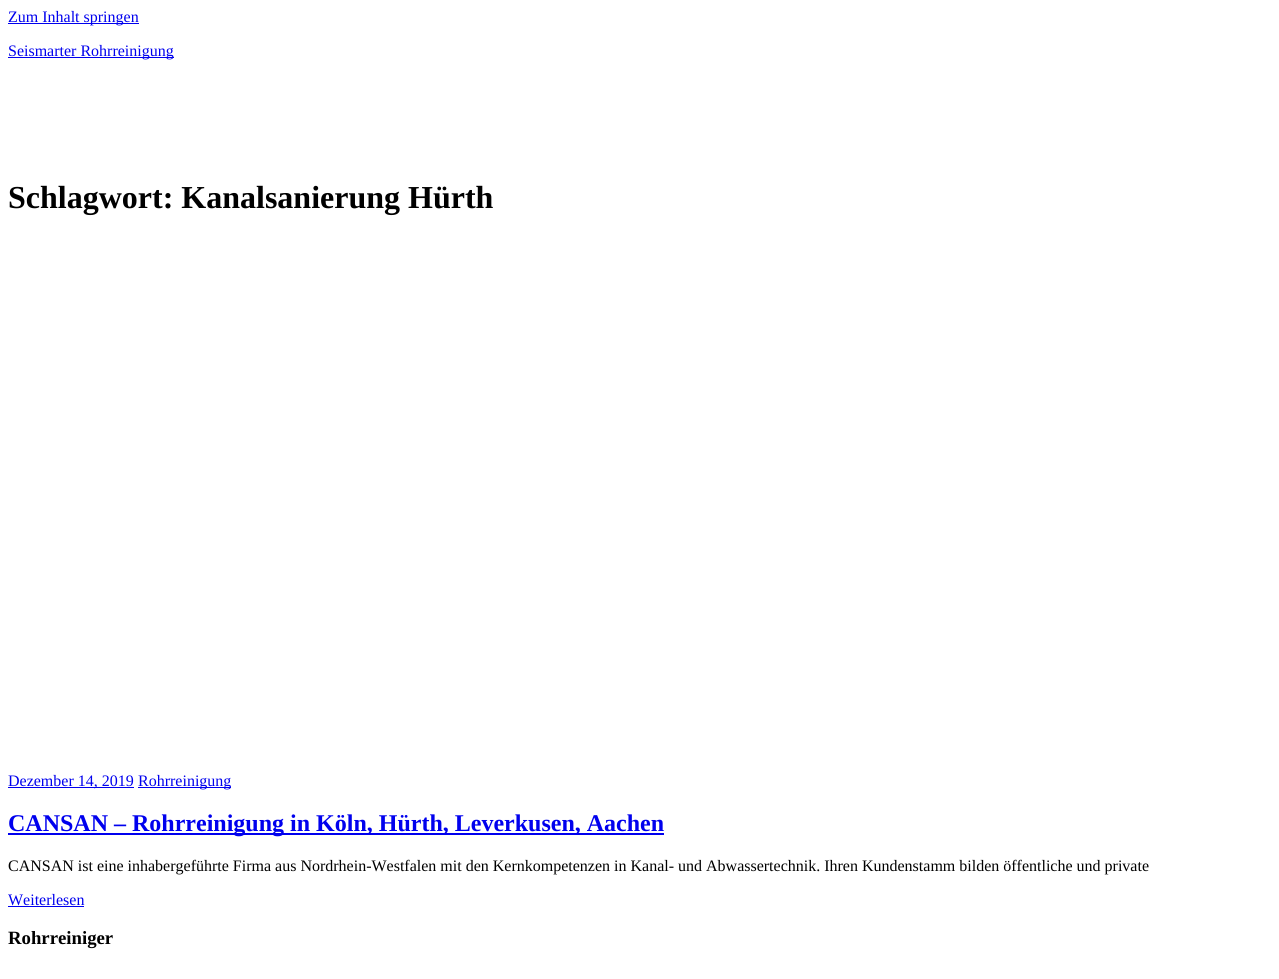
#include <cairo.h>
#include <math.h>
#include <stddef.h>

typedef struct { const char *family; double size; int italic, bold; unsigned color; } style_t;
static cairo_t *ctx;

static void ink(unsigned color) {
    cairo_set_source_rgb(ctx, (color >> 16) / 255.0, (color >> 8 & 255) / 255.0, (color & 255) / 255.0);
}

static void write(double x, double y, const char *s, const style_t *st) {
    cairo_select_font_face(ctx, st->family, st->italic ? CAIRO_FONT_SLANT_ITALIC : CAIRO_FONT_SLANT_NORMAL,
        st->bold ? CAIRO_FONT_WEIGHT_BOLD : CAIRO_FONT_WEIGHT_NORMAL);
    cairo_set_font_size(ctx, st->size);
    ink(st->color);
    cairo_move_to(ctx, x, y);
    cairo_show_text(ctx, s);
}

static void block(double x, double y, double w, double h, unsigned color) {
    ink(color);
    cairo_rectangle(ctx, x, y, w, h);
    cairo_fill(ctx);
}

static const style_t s1 = {"Liberation Serif", 16, 0, 0, 0x0000ee};
static const style_t s2 = {"Liberation Serif", 32, 0, 1, 0x000000};
static const style_t s3 = {"Liberation Serif", 24, 0, 1, 0x0000ee};
static const style_t s4 = {"Liberation Serif", 16, 0, 0, 0x000000};
static const style_t s5 = {"Liberation Serif", 18.75, 0, 1, 0x000000};

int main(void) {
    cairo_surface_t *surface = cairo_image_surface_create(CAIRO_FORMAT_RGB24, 1279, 979);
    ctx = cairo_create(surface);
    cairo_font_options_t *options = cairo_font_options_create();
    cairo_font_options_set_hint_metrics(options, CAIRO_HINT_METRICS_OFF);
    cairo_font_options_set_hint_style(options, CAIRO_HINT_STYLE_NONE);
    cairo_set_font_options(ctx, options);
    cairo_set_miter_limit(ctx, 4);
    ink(0xffffff);
    cairo_paint(ctx);
    block(8, 23, 131, 1, 0x0000ee);
    write(8, 22, "Zum Inhalt springen", &s1);
    block(8, 57, 166, 1, 0x0000ee);
    write(8, 56, "Seismarter Rohrreinigung", &s1);
    write(8, 208, "Schlagwort: Kanalsanierung Hürth", &s2);
    block(8, 787, 126, 1, 0x0000ee);
    write(8, 786, "Dezember 14, 2019", &s1);
    block(138, 787, 93, 1, 0x0000ee);
    write(138, 786, "Rohrreinigung", &s1);
    block(8, 833, 656, 2, 0x0000ee);
    write(8, 831, "CANSAN – Rohrreinigung in Köln, Hürth, Leverkusen, Aachen", &s3);
    write(8, 871, "CANSAN ist eine inhabergeführte Firma aus Nordrhein-Westfalen mit den Kernkompetenzen in Kanal- und Abwassertechnik. Ihren Kundenstamm bilden öffentliche und private", &s4);
    write(8, 905, "Weiterlesen", &s1);
    block(8, 906, 76, 1, 0x0000ee);
    write(8, 944, "Rohrreiniger", &s5);
    cairo_surface_write_to_png(surface, "screenshot.png");
    cairo_font_options_destroy(options);
    cairo_destroy(ctx);
    cairo_surface_destroy(surface);
    return 0;
}
